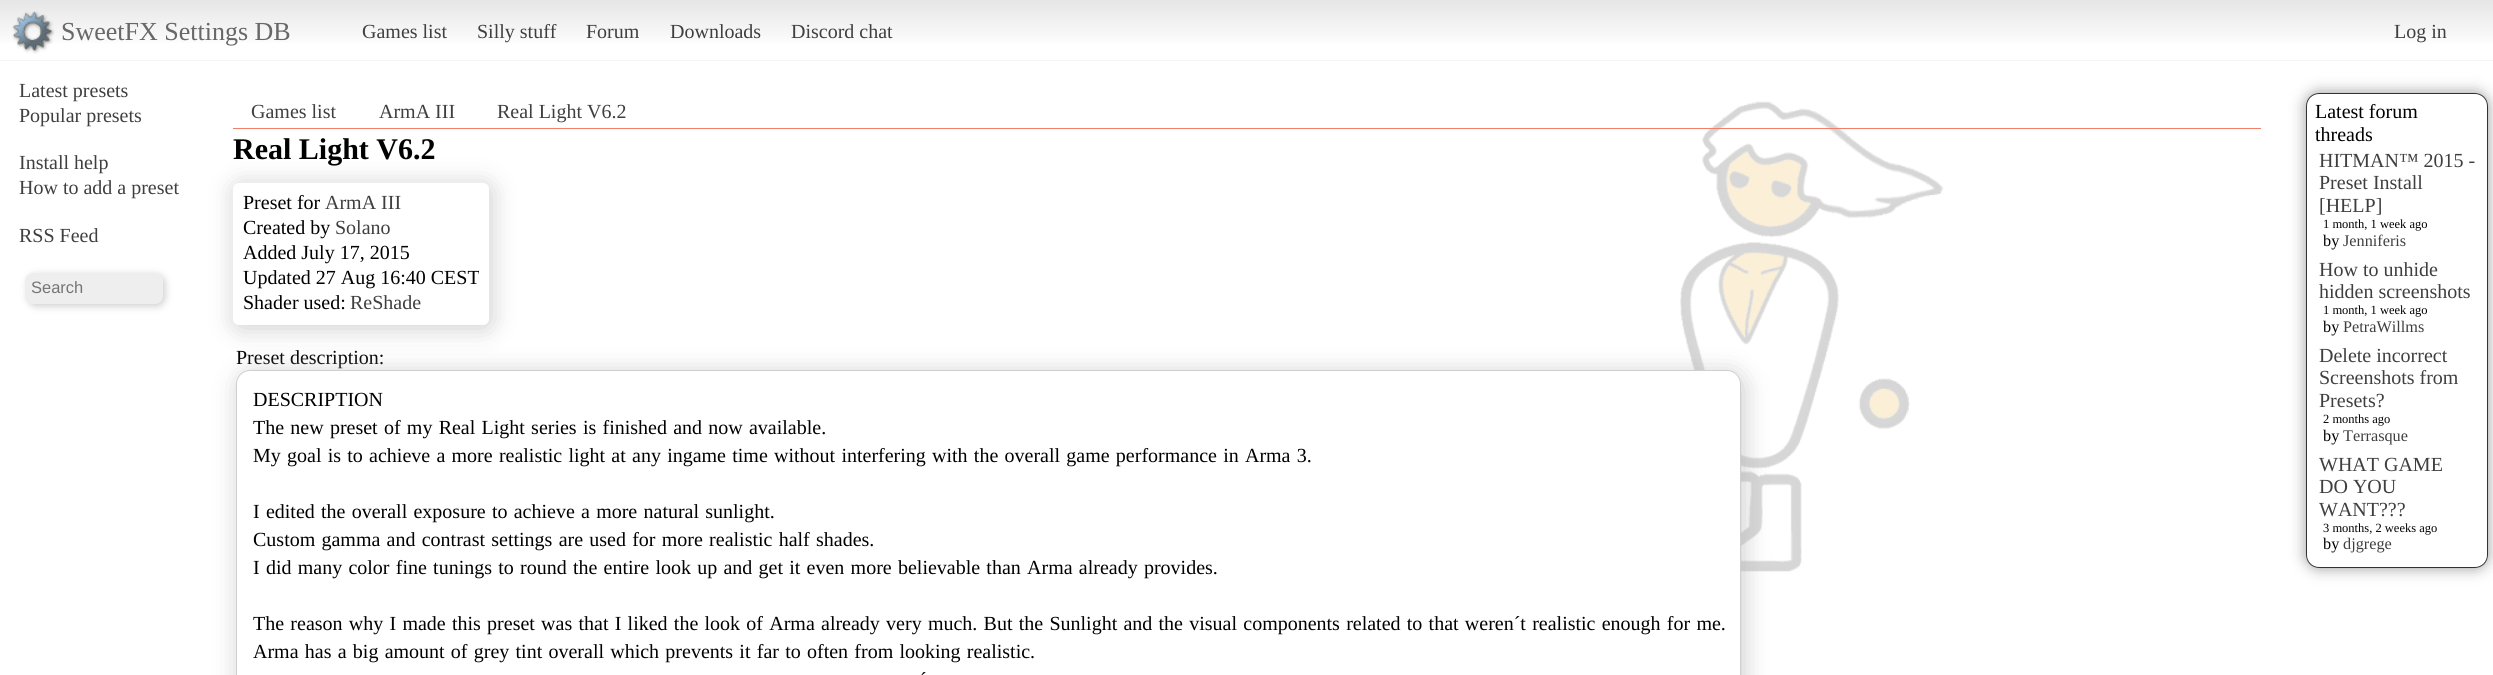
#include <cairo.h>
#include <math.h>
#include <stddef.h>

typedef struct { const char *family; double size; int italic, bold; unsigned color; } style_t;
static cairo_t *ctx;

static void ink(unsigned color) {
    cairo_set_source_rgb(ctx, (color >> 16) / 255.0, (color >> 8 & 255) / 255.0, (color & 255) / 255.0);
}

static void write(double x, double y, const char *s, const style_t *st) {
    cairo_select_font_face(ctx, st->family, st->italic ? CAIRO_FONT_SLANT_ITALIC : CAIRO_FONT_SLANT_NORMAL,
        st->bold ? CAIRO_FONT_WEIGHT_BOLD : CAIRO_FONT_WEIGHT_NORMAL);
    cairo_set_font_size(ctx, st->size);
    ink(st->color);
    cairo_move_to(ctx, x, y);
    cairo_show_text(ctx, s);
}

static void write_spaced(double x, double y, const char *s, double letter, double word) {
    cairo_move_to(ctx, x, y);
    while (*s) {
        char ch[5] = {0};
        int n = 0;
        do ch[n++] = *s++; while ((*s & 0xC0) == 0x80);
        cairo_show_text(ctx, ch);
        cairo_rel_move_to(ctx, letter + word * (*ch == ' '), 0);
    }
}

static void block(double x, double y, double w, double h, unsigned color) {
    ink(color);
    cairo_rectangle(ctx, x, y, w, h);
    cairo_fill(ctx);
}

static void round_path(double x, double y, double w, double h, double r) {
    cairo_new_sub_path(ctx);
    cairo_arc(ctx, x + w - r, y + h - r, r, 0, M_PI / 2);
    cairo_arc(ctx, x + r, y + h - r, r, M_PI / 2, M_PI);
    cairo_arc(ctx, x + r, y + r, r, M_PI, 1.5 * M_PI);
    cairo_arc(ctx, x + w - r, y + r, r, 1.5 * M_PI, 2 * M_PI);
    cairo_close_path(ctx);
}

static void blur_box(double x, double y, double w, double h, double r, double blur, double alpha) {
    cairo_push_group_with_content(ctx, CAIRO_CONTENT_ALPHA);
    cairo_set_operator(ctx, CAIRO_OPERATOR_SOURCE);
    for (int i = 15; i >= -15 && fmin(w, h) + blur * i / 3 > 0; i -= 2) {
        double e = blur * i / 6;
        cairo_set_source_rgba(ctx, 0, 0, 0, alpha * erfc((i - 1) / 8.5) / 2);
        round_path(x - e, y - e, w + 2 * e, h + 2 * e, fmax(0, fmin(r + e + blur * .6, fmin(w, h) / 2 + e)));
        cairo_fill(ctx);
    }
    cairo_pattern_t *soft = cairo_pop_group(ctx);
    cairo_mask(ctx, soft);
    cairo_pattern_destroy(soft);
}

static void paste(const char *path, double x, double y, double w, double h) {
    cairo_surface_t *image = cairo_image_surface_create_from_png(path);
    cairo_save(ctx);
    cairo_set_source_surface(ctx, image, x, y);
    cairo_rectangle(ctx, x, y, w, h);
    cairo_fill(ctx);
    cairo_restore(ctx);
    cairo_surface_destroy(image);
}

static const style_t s1 = {"Liberation Serif", 26, 0, 0, 0x686868};
static const style_t s2 = {"Liberation Serif", 20, 0, 0, 0x3f3f3f};
static const style_t s3 = {"Liberation Sans", 16.5, 0, 0, 0x757575};
static const style_t s4 = {"Liberation Serif", 30, 0, 1, 0x000000};
static const style_t s5 = {"Liberation Serif", 20, 0, 0, 0x000000};
static const style_t s6 = {"Liberation Serif", 12.5, 0, 0, 0x000000};
static const style_t s7 = {"Liberation Serif", 16.25, 0, 0, 0x000000};
static const style_t s8 = {"Liberation Serif", 16.25, 0, 0, 0x3f3f3f};

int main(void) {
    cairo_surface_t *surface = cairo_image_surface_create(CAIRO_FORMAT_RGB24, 2493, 675);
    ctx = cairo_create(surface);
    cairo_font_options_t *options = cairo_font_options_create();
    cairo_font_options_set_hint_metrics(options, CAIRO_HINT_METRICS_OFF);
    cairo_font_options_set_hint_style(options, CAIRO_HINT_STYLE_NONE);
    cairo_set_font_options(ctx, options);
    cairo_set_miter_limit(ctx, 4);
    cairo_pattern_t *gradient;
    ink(0xffffff);
    cairo_paint(ctx);
    paste("pic1.png", 1679, 101, 265, 471);
    gradient = cairo_pattern_create_linear(1247, 0, 1247, 60);
    cairo_pattern_add_color_stop_rgba(gradient, 0, 0.902, 0.902, 0.902, 1);
    cairo_pattern_add_color_stop_rgba(gradient, 0.8, 1, 1, 1, 1);
    cairo_set_source(ctx, gradient);
    cairo_pattern_destroy(gradient);
    cairo_rectangle(ctx, 0, 0, 2493, 43);
    cairo_fill(ctx);
    block(0, 60, 2493, 1, 0xf5f5f5);
    paste("pic2.png", 12, 11, 43, 43);
    write(61, 40, "SweetFX Settings DB", &s1);
    write(362, 38, "Games list", &s2);
    write(477, 38, "Silly stuff", &s2);
    write(586, 38, "Forum", &s2);
    write(670, 38, "Downloads", &s2);
    write(791, 38, "Discord chat", &s2);
    write(2394, 38, "Log in", &s2);
    write(19, 97, "Latest presets", &s2);
    write(19, 122, "Popular presets", &s2);
    write(19, 169, "Install help", &s2);
    write(19, 194, "How to add a preset", &s2);
    write(19, 242, "RSS Feed", &s2);
    ink(0x323232);
    blur_box(28, 275, 137, 31, 8, 4, 0.25);
    ink(0xeeeeee);
    round_path(25, 273, 138, 31, 8);
    cairo_fill(ctx);
    write(31, 293, "Search", &s3);
    block(233, 128, 2028, 1, 0xf0806a);
    write(251, 118, "Games list", &s2);
    write(379, 118, "ArmA III", &s2);
    write(497, 118, "Real Light V6.2", &s2);
    write(233, 159, "Real Light V6.2", &s4);
    ink(0xb6b6b6);
    blur_box(235, 185, 256, 143, 6, 12.5, 0.68);
    ink(0xffffff);
    round_path(233, 183, 256, 142, 6);
    cairo_fill(ctx);
    write(243, 209, "Preset for", &s5);
    write(325, 209, "ArmA III", &s2);
    write(243, 234, "Created by", &s5);
    write(335, 234, "Solano", &s2);
    write(243, 259, "Added July 17, 2015", &s5);
    write(243, 284, "Updated 27 Aug 16:40 CEST", &s5);
    write(243, 309, "Shader used:", &s5);
    write(350, 309, "ReShade", &s2);
    write(236, 364, "Preset description:", &s5);
    ink(0xb6b6b6);
    blur_box(239, 373, 1505, 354, 14, 12.5, 0.68);
    ink(0xffffff);
    round_path(236, 370, 1505, 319, 14);
    cairo_fill(ctx);
    round_path(236.5, 370.5, 1504, 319, 13.5);
    cairo_set_source_rgba(ctx, 0, 0, 0, 0.19);
    cairo_set_line_width(ctx, 1);
    cairo_stroke(ctx);
    write(253, 406, "DESCRIPTION", &s5);
    write_spaced(253, 434, "The new preset of my Real Light series is finished and now available.", 0, 1.25);
    write_spaced(253, 462, "My goal is to achieve a more realistic light at any ingame time without interfering with the overall game performance in Arma 3.", 0, 1.25);
    write_spaced(253, 518, "I edited the overall exposure to achieve a more natural sunlight.", 0, 1.25);
    write_spaced(253, 546, "Custom gamma and contrast settings are used for more realistic half shades.", 0, 1.25);
    write_spaced(253, 574, "I did many color fine tunings to round the entire look up and get it even more believable than Arma already provides.", 0, 1.25);
    write_spaced(253, 630, "The reason why I made this preset was that I liked the look of Arma already very much. But the Sunlight and the visual components related to that weren´t realistic enough for me.", 0, 1.25);
    write_spaced(253, 658, "Arma has a big amount of grey tint overall which prevents it far to often from looking realistic.", 0, 1.25);
    write_spaced(920, 686, "´", 0, 1.25);
    cairo_save(ctx);
    cairo_set_fill_rule(ctx, CAIRO_FILL_RULE_EVEN_ODD);
    cairo_new_path(ctx);
    cairo_move_to(ctx, 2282, 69);
    cairo_line_to(ctx, 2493, 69);
    cairo_line_to(ctx, 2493, 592);
    cairo_line_to(ctx, 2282, 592);
    cairo_close_path(ctx);
    cairo_move_to(ctx, 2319, 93);
    cairo_line_to(ctx, 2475, 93);
    cairo_curve_to(ctx, 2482, 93, 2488, 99, 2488, 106);
    cairo_line_to(ctx, 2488, 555);
    cairo_curve_to(ctx, 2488, 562, 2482, 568, 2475, 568);
    cairo_line_to(ctx, 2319, 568);
    cairo_curve_to(ctx, 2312, 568, 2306, 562, 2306, 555);
    cairo_line_to(ctx, 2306, 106);
    cairo_curve_to(ctx, 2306, 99, 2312, 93, 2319, 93);
    cairo_close_path(ctx);
    cairo_clip(ctx);
    ink(0x999999);
    blur_box(2306, 93, 182, 475, 13, 7.5, 1);
    cairo_restore(ctx);
    round_path(2306.5, 93.5, 181, 474, 12.5);
    ink(0x333333);
    cairo_stroke(ctx);
    write(2315, 118, "Latest forum", &s5);
    write(2315, 141, "threads", &s5);
    write(2319, 167, "HITMAN™ 2015 -", &s2);
    write(2319, 189, "Preset Install", &s2);
    write(2319, 212, "[HELP]", &s2);
    write(2323, 228, "1 month, 1 week ago", &s6);
    write(2323, 246, "by", &s7);
    write(2343, 246, "Jenniferis", &s8);
    write(2319, 276, "How to unhide", &s2);
    write(2319, 298, "hidden screenshots", &s2);
    write(2323, 314, "1 month, 1 week ago", &s6);
    write(2323, 332, "by", &s7);
    write(2343, 332, "PetraWillms", &s8);
    write(2319, 362, "Delete incorrect", &s2);
    write(2319, 384, "Screenshots from", &s2);
    write(2319, 407, "Presets?", &s2);
    write(2323, 423, "2 months ago", &s6);
    write(2323, 441, "by", &s7);
    write(2343, 441, "Terrasque", &s8);
    write(2319, 471, "WHAT GAME", &s2);
    write(2319, 493, "DO YOU", &s2);
    write(2319, 516, "WANT?\077?", &s2);
    write(2323, 532, "3 months, 2 weeks ago", &s6);
    write(2323, 549, "by", &s7);
    write(2343, 549, "djgrege", &s8);
    cairo_surface_write_to_png(surface, "screenshot.png");
    cairo_font_options_destroy(options);
    cairo_destroy(ctx);
    cairo_surface_destroy(surface);
    return 0;
}
